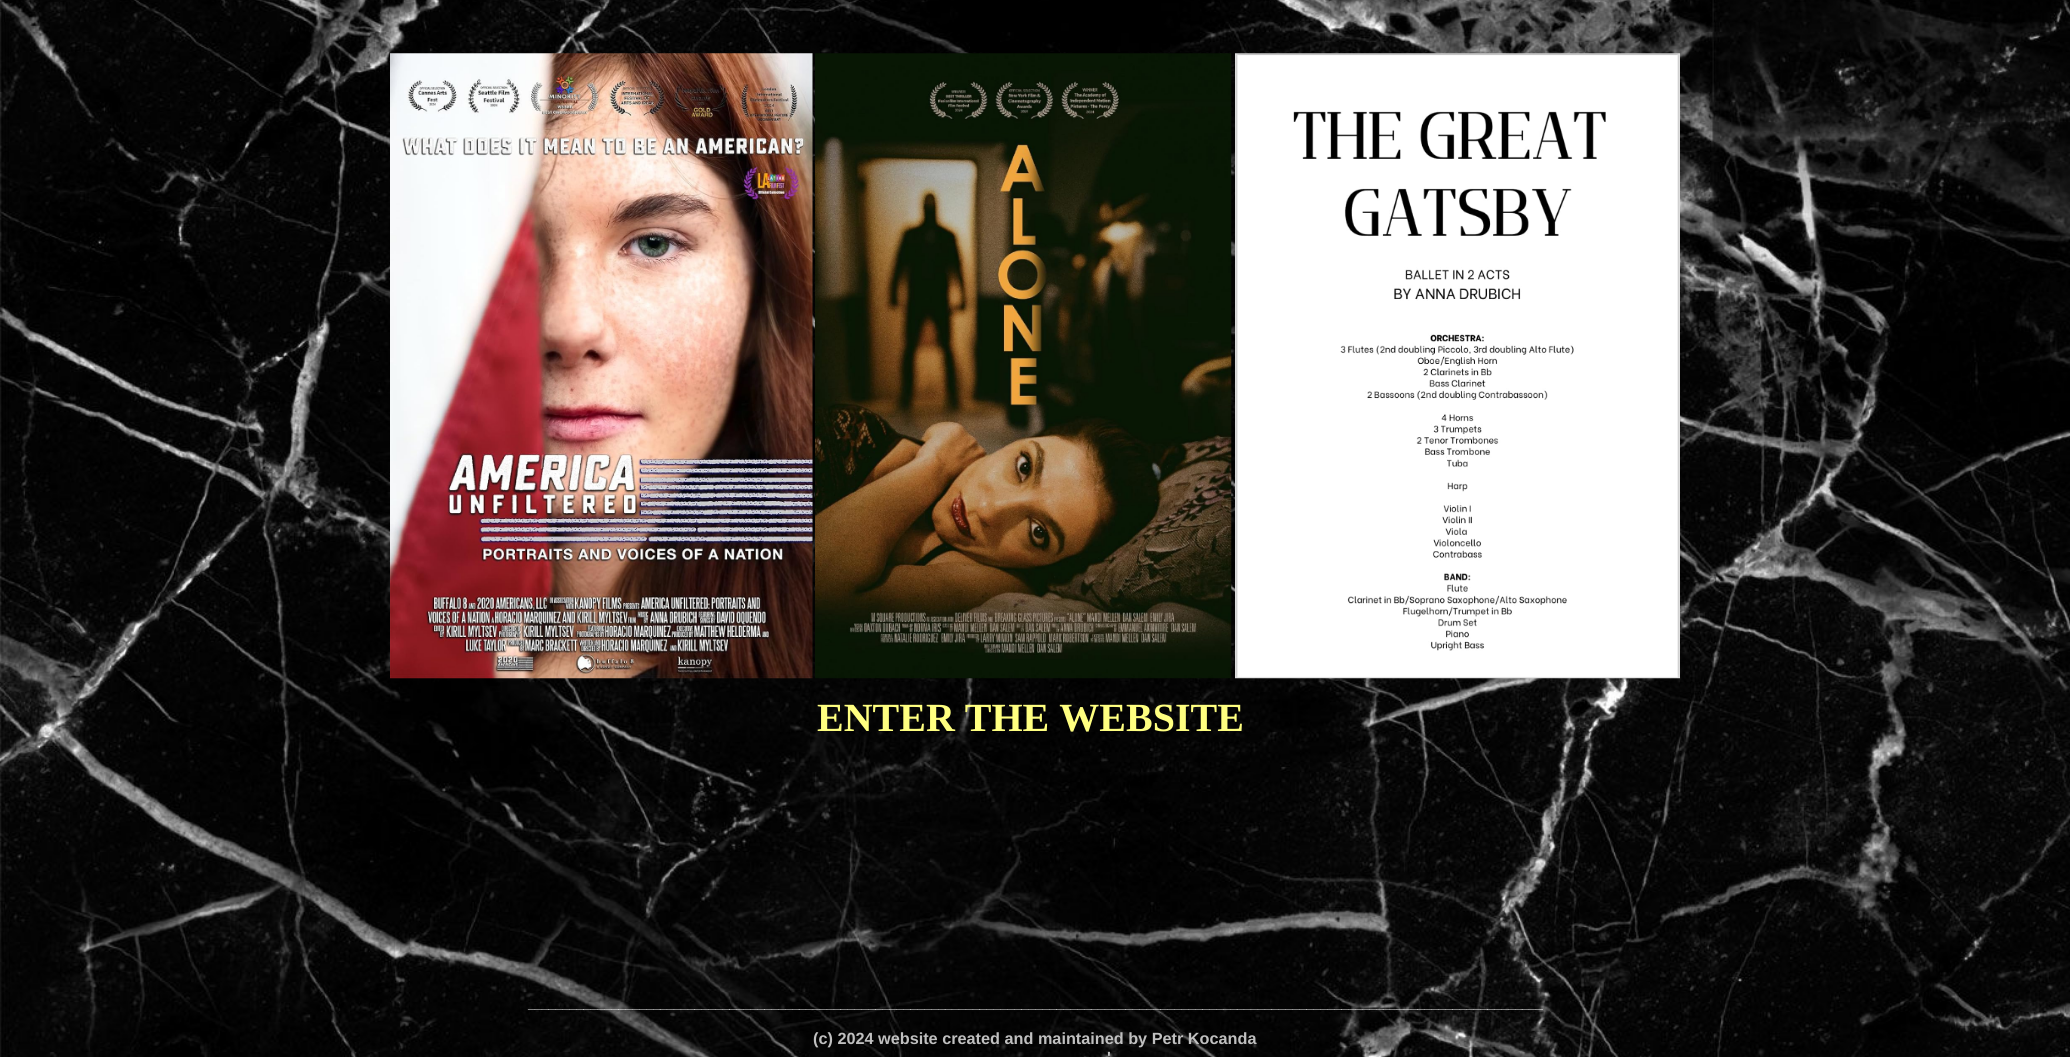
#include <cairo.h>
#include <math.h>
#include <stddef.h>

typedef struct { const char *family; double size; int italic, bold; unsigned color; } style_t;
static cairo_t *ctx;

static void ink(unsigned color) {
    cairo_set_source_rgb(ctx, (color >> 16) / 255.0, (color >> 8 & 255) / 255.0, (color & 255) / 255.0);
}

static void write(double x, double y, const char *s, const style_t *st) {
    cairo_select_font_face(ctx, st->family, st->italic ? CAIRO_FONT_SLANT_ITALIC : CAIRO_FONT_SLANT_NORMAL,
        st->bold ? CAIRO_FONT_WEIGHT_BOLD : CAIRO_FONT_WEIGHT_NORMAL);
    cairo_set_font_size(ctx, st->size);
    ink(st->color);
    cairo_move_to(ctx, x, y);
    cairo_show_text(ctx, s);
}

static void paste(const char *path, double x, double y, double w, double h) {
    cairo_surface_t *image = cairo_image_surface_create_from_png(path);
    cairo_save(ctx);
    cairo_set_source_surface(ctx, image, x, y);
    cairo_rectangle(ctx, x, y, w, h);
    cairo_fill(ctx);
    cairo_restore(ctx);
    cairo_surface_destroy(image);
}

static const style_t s1 = {"Liberation Serif", 40, 0, 1, 0xffff80};
static const style_t s2 = {"Liberation Sans", 12.5, 0, 1, 0xffffff};
static const style_t s3 = {"Liberation Sans", 16.25, 0, 1, 0xc0c0c0};

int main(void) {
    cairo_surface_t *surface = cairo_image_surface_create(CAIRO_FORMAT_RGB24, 2070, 1057);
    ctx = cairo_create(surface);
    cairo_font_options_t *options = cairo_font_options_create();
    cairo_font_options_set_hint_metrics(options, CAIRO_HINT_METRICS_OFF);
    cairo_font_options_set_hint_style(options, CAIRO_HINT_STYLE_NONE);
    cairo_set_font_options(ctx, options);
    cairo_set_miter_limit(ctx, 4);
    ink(0xffffff);
    cairo_paint(ctx);
    paste("pic1.png", 0, 0, 2070, 1057);
    paste("pic2.png", 390, 53, 423, 626);
    paste("pic3.png", 815, 53, 417, 626);
    paste("pic4.png", 1235, 53, 445, 626);
    write(817, 731, "ENTER THE WEBSITE", &s1);
    write(528, 1008, "__________________________________________________________________________________________________________________________________________________", &s2);
    write(813, 1044, "(c) 2024 website created and maintained by Petr Kocanda", &s3);
    write(1107, 1063, "'", &s3);
    cairo_surface_write_to_png(surface, "screenshot.png");
    cairo_font_options_destroy(options);
    cairo_destroy(ctx);
    cairo_surface_destroy(surface);
    return 0;
}
